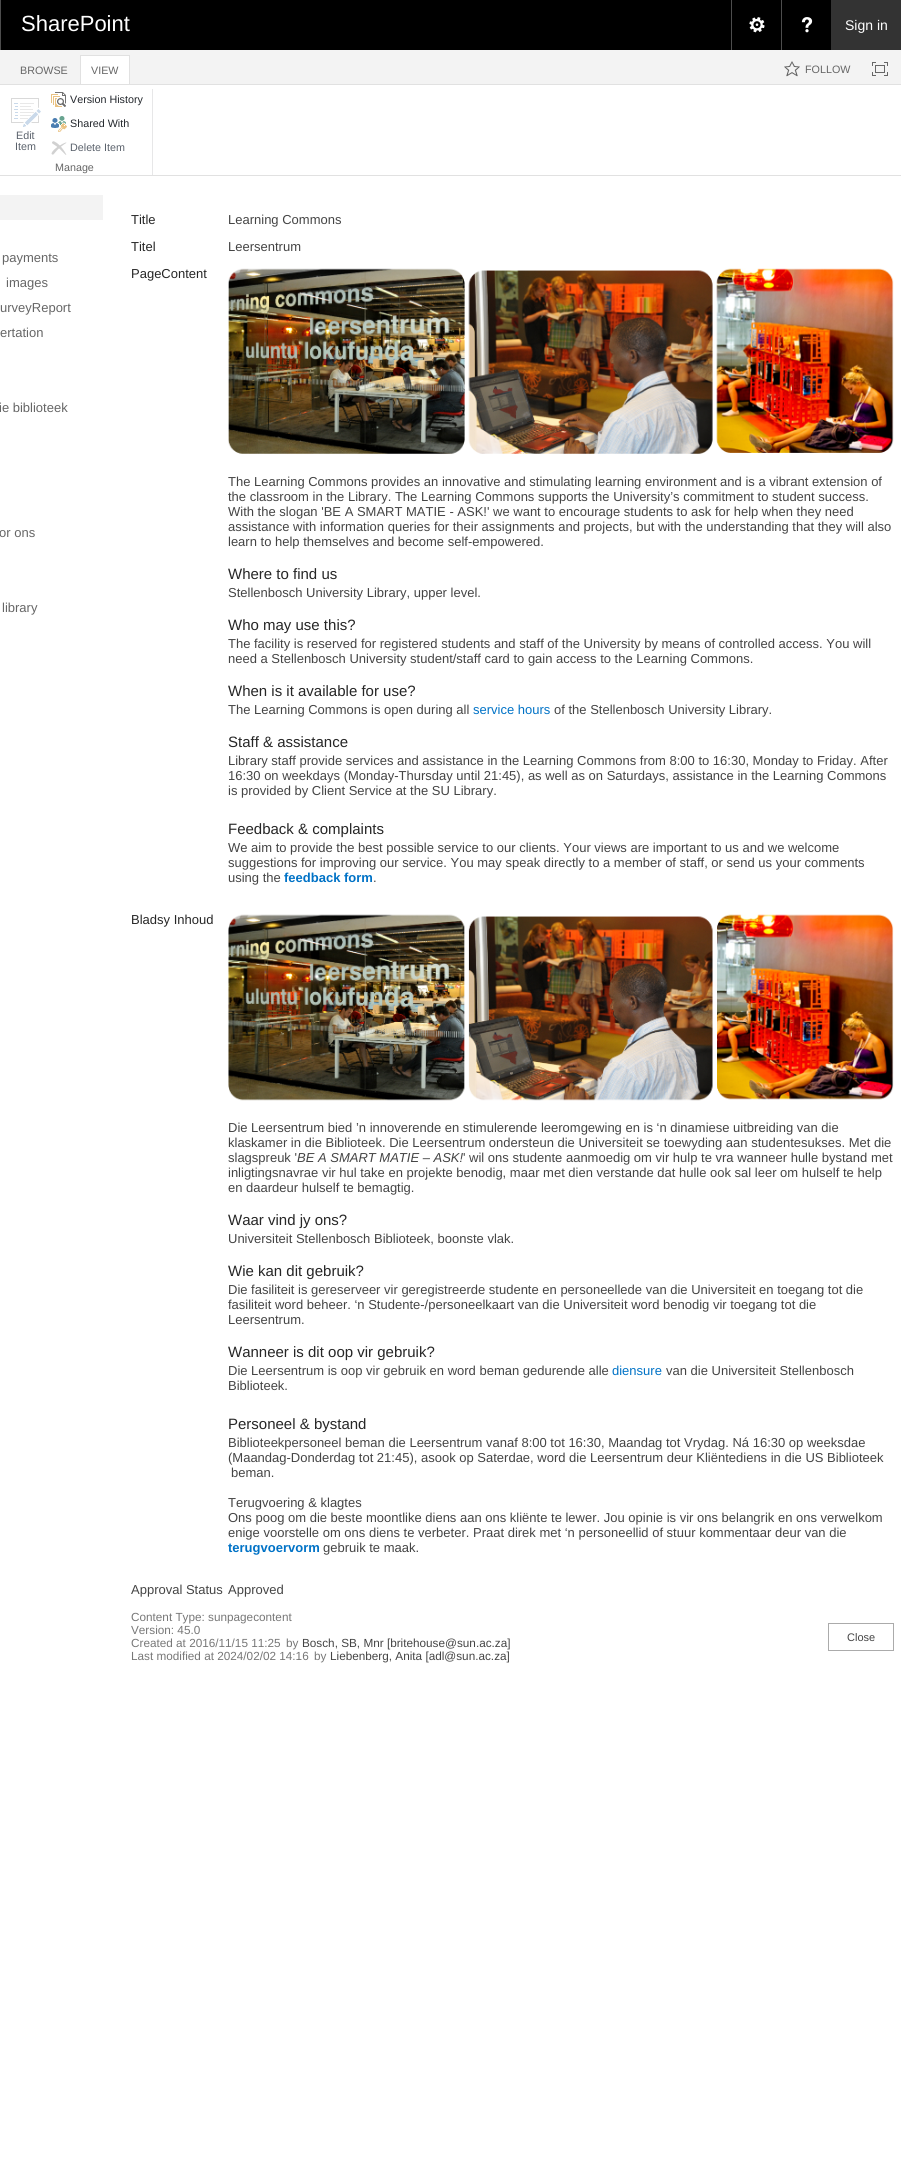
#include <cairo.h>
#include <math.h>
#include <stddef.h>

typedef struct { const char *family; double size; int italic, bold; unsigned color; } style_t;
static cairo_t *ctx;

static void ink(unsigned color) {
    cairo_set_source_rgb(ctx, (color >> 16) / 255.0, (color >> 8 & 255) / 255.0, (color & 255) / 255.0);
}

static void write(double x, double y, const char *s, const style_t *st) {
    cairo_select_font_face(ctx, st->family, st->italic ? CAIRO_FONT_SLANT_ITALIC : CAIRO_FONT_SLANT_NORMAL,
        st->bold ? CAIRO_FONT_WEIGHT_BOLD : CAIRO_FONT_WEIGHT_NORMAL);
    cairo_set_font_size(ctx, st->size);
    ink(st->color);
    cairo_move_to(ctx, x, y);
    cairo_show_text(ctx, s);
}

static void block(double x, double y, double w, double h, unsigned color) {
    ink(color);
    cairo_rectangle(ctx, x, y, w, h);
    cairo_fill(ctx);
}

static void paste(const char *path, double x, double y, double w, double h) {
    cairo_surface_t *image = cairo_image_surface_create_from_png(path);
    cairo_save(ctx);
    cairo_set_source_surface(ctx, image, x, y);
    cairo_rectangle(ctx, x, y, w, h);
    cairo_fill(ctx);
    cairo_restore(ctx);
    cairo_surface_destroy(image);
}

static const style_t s1 = {"Liberation Sans", 22, 0, 0, 0xffffff};
static const style_t s2 = {"Liberation Sans", 14, 0, 0, 0xffffff};
static const style_t s3 = {"Liberation Sans", 10.75, 0, 0, 0x666666};
static const style_t s4 = {"Liberation Sans", 10.75, 0, 0, 0x5b626c};
static const style_t s5 = {"Liberation Sans", 10.75, 0, 0, 0x23272c};
static const style_t s6 = {"Liberation Sans", 13, 0, 0, 0x666666};
static const style_t s7 = {"Liberation Sans", 13, 0, 0, 0x262626};
static const style_t s8 = {"Liberation Sans", 13, 0, 0, 0x444444};
static const style_t s9 = {"Liberation Sans", 15, 0, 0, 0x262626};
static const style_t s10 = {"Liberation Sans", 13, 0, 0, 0x0072c6};
static const style_t s11 = {"Liberation Sans", 13, 0, 1, 0x0072c6};
static const style_t s12 = {"Liberation Sans", 13, 1, 0, 0x444444};
static const style_t s13 = {"Liberation Sans", 11.75, 0, 0, 0x777777};
static const style_t s14 = {"Liberation Sans", 11.75, 0, 0, 0x444444};
static const style_t s15 = {"Liberation Sans", 11, 0, 0, 0x444444};

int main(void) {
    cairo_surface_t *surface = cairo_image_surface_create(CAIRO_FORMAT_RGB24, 901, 2183);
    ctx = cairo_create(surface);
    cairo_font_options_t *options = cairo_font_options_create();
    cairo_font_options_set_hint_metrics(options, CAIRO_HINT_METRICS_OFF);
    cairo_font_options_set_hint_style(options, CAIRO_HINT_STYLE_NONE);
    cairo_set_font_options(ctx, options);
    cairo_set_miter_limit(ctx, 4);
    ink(0xffffff);
    cairo_paint(ctx);
    block(1, 0, 830, 50, 0x000000);
    block(0, 0, 1, 50, 0x4d4d4d);
    write(21, 31, "SharePoint", &s1);
    block(731, 0, 1, 50, 0x4d4d4d);
    paste("pic1.png", 749, 17, 16, 16);
    block(781, 0, 1, 50, 0x4d4d4d);
    paste("pic2.png", 801, 17, 12, 16);
    block(831, 0, 70, 50, 0x333333);
    write(845, 30, "Sign in", &s2);
    block(0, 50, 901, 34, 0xf3f3f3);
    block(0, 84, 901, 1, 0xe1e1e1);
    write(20, 74, "BROWSE", &s3);
    block(81, 56, 48, 28, 0xffffff);
    block(80, 55, 50, 1, 0xe1e1e1);
    block(129, 55, 1, 29, 0xe1e1e1);
    block(80, 55, 1, 29, 0xe1e1e1);
    write(91, 74, "VIEW", &s3);
    paste("pic3.png", 784, 61, 16, 16);
    write(805, 73, "FOLLOW", &s3);
    paste("pic4.png", 872, 62, 16, 14);
    block(0, 175, 901, 1, 0xe1e1e1);
    paste("pic5.png", 11, 98, 30, 29);
    write(16, 139, "Edit", &s4);
    write(15, 150, "Item", &s4);
    paste("pic6.png", 51, 92, 15, 15);
    write(70, 103, "Version History", &s5);
    paste("pic7.png", 51, 116, 16, 16);
    write(70, 127, "Shared With", &s5);
    paste("pic8.png", 51, 141, 16, 14);
    write(70, 151, "Delete Item", &s4);
    write(55, 171, "Manage", &s3);
    block(152, 89, 1, 86, 0xe7e7e8);
    block(0, 195, 103, 25, 0xf3f3f3);
    write(2, 262, "payments", &s6);
    write(6, 287, "images", &s6);
    write(0, 312, "urveyReport", &s6);
    write(0, 337, "ertation", &s6);
    write(-1, 412, "ie biblioteek", &s6);
    write(-1, 537, "or ons", &s6);
    write(2, 612, "library", &s6);
    write(131, 224, "Title", &s7);
    write(228, 224, "Learning Commons", &s8);
    write(131, 251, "Titel", &s7);
    write(228, 251, "Leersentrum", &s8);
    write(131, 278, "PageContent", &s7);
    paste("pic9.png", 228, 268, 666, 186);
    write(228, 486, "The Learning Commons provides an innovative and stimulating learning environment and is a vibrant extension of", &s8);
    write(228, 501, "the classroom in the Library. The Learning Commons supports the University’s commitment to student success.", &s8);
    write(228, 516, "With the slogan 'BE A SMART MATIE - ASK!' we want to encourage students to ask for help when they need", &s8);
    write(228, 531, "assistance with information queries for their assignments and projects, but with the understanding that they will also", &s8);
    write(228, 546, "learn to help themselves and become self-empowered.", &s8);
    write(228, 579, "Where to find us", &s9);
    write(228, 597, "Stellenbosch University Library, upper level.", &s8);
    write(228, 630, "Who may use this?", &s9);
    write(228, 648, "The facility is reserved for registered students and staff of the University by means of controlled access. You will", &s8);
    write(228, 663, "need a Stellenbosch University student/staff card to gain access to the Learning Commons.", &s8);
    write(228, 696, "When is it available for use?", &s9);
    write(228, 714, "The Learning Commons is open during all", &s8);
    write(473, 714, "service hours", &s10);
    write(554, 714, "of the Stellenbosch University Library.", &s8);
    write(228, 747, "Staff & assistance", &s9);
    write(228, 765, "Library staff provide services and assistance in the Learning Commons from 8:00 to 16:30, Monday to Friday. After", &s8);
    write(228, 780, "16:30 on weekdays (Monday-Thursday until 21:45), as well as on Saturdays, assistance in the Learning Commons", &s8);
    write(228, 795, "is provided by Client Service at the SU Library.", &s8);
    write(228, 834, "Feedback & complaints", &s9);
    write(228, 852, "We aim to provide the best possible service to our clients. Your views are important to us and we welcome", &s8);
    write(228, 867, "suggestions for improving our service. You may speak directly to a member of staff, or send us your comments", &s8);
    write(228, 882, "using the", &s8);
    write(284, 882, "feedback form", &s11);
    write(373, 882, ".", &s8);
    write(131, 924, "Bladsy Inhoud", &s7);
    paste("pic10.png", 228, 914, 666, 187);
    write(228, 1132, "Die Leersentrum bied ’n innoverende en stimulerende leeromgewing en is ‘n dinamiese uitbreiding van die", &s8);
    write(228, 1147, "klaskamer in die Biblioteek. Die Leersentrum ondersteun die Universiteit se toewyding aan studentesukses. Met die", &s8);
    write(228, 1162, "slagspreuk '", &s8);
    write(297, 1162, "BE A SMART MATIE – ASK!", &s12);
    write(463, 1162, "' wil ons studente aanmoedig om vir hulp te vra wanneer hulle bystand met", &s8);
    write(228, 1177, "inligtingsnavrae vir hul take en projekte benodig, maar met dien verstande dat hulle ook sal leer om hulself te help", &s8);
    write(228, 1192, "en daardeur hulself te bemagtig.", &s8);
    write(228, 1225, "Waar vind jy ons?", &s9);
    write(228, 1243, "Universiteit Stellenbosch Biblioteek, boonste vlak.", &s8);
    write(228, 1276, "Wie kan dit gebruik?", &s9);
    write(228, 1294, "Die fasiliteit is gereserveer vir geregistreerde studente en personeellede van die Universiteit en toegang tot die", &s8);
    write(228, 1309, "fasiliteit word beheer. ‘n Studente-/personeelkaart van die Universiteit word benodig vir toegang tot die", &s8);
    write(228, 1324, "Leersentrum.", &s8);
    write(228, 1357, "Wanneer is dit oop vir gebruik?", &s9);
    write(228, 1375, "Die Leersentrum is oop vir gebruik en word beman gedurende alle", &s8);
    write(612, 1375, "diensure", &s10);
    write(666, 1375, "van die Universiteit Stellenbosch", &s8);
    write(228, 1390, "Biblioteek.", &s8);
    write(228, 1429, "Personeel & bystand", &s9);
    write(228, 1447, "Biblioteekpersoneel beman die Leersentrum vanaf 8:00 tot 16:30, Maandag tot Vrydag. Ná 16:30 op weeksdae", &s8);
    write(228, 1462, "(Maandag-Donderdag tot 21:45), asook op Saterdae, word die Leersentrum deur Kliëntediens in die US Biblioteek", &s8);
    write(231, 1477, "beman.", &s8);
    write(228, 1507, "Terugvoering & klagtes", &s8);
    write(228, 1522, "Ons poog om die beste moontlike diens aan ons kliënte te lewer. Jou opinie is vir ons belangrik en ons verwelkom", &s8);
    write(228, 1537, "enige voorstelle om ons diens te verbeter. Praat direk met ‘n personeellid of stuur kommentaar deur van die", &s8);
    write(228, 1552, "terugvoervorm", &s11);
    write(323, 1552, "gebruik te maak.", &s8);
    write(131, 1594, "Approval Status", &s8);
    write(228, 1594, "Approved", &s8);
    write(131, 1621, "Content Type: sunpagecontent", &s13);
    write(131, 1634, "Version: 45.0", &s13);
    write(131, 1647, "Created at 2016/11/15 11:25", &s13);
    write(286, 1647, "by", &s13);
    write(302, 1647, "Bosch, SB, Mnr [britehouse@sun.ac.za]", &s14);
    write(131, 1660, "Last modified at 2024/02/02 14:16", &s13);
    write(314, 1660, "by", &s13);
    write(330, 1660, "Liebenberg, Anita [adl@sun.ac.za]", &s14);
    cairo_rectangle(ctx, 828.5, 1623.5, 65, 27);
    ink(0xababab);
    cairo_set_line_width(ctx, 1);
    cairo_stroke(ctx);
    write(847, 1641, "Close", &s15);
    cairo_surface_write_to_png(surface, "screenshot.png");
    cairo_font_options_destroy(options);
    cairo_destroy(ctx);
    cairo_surface_destroy(surface);
    return 0;
}
